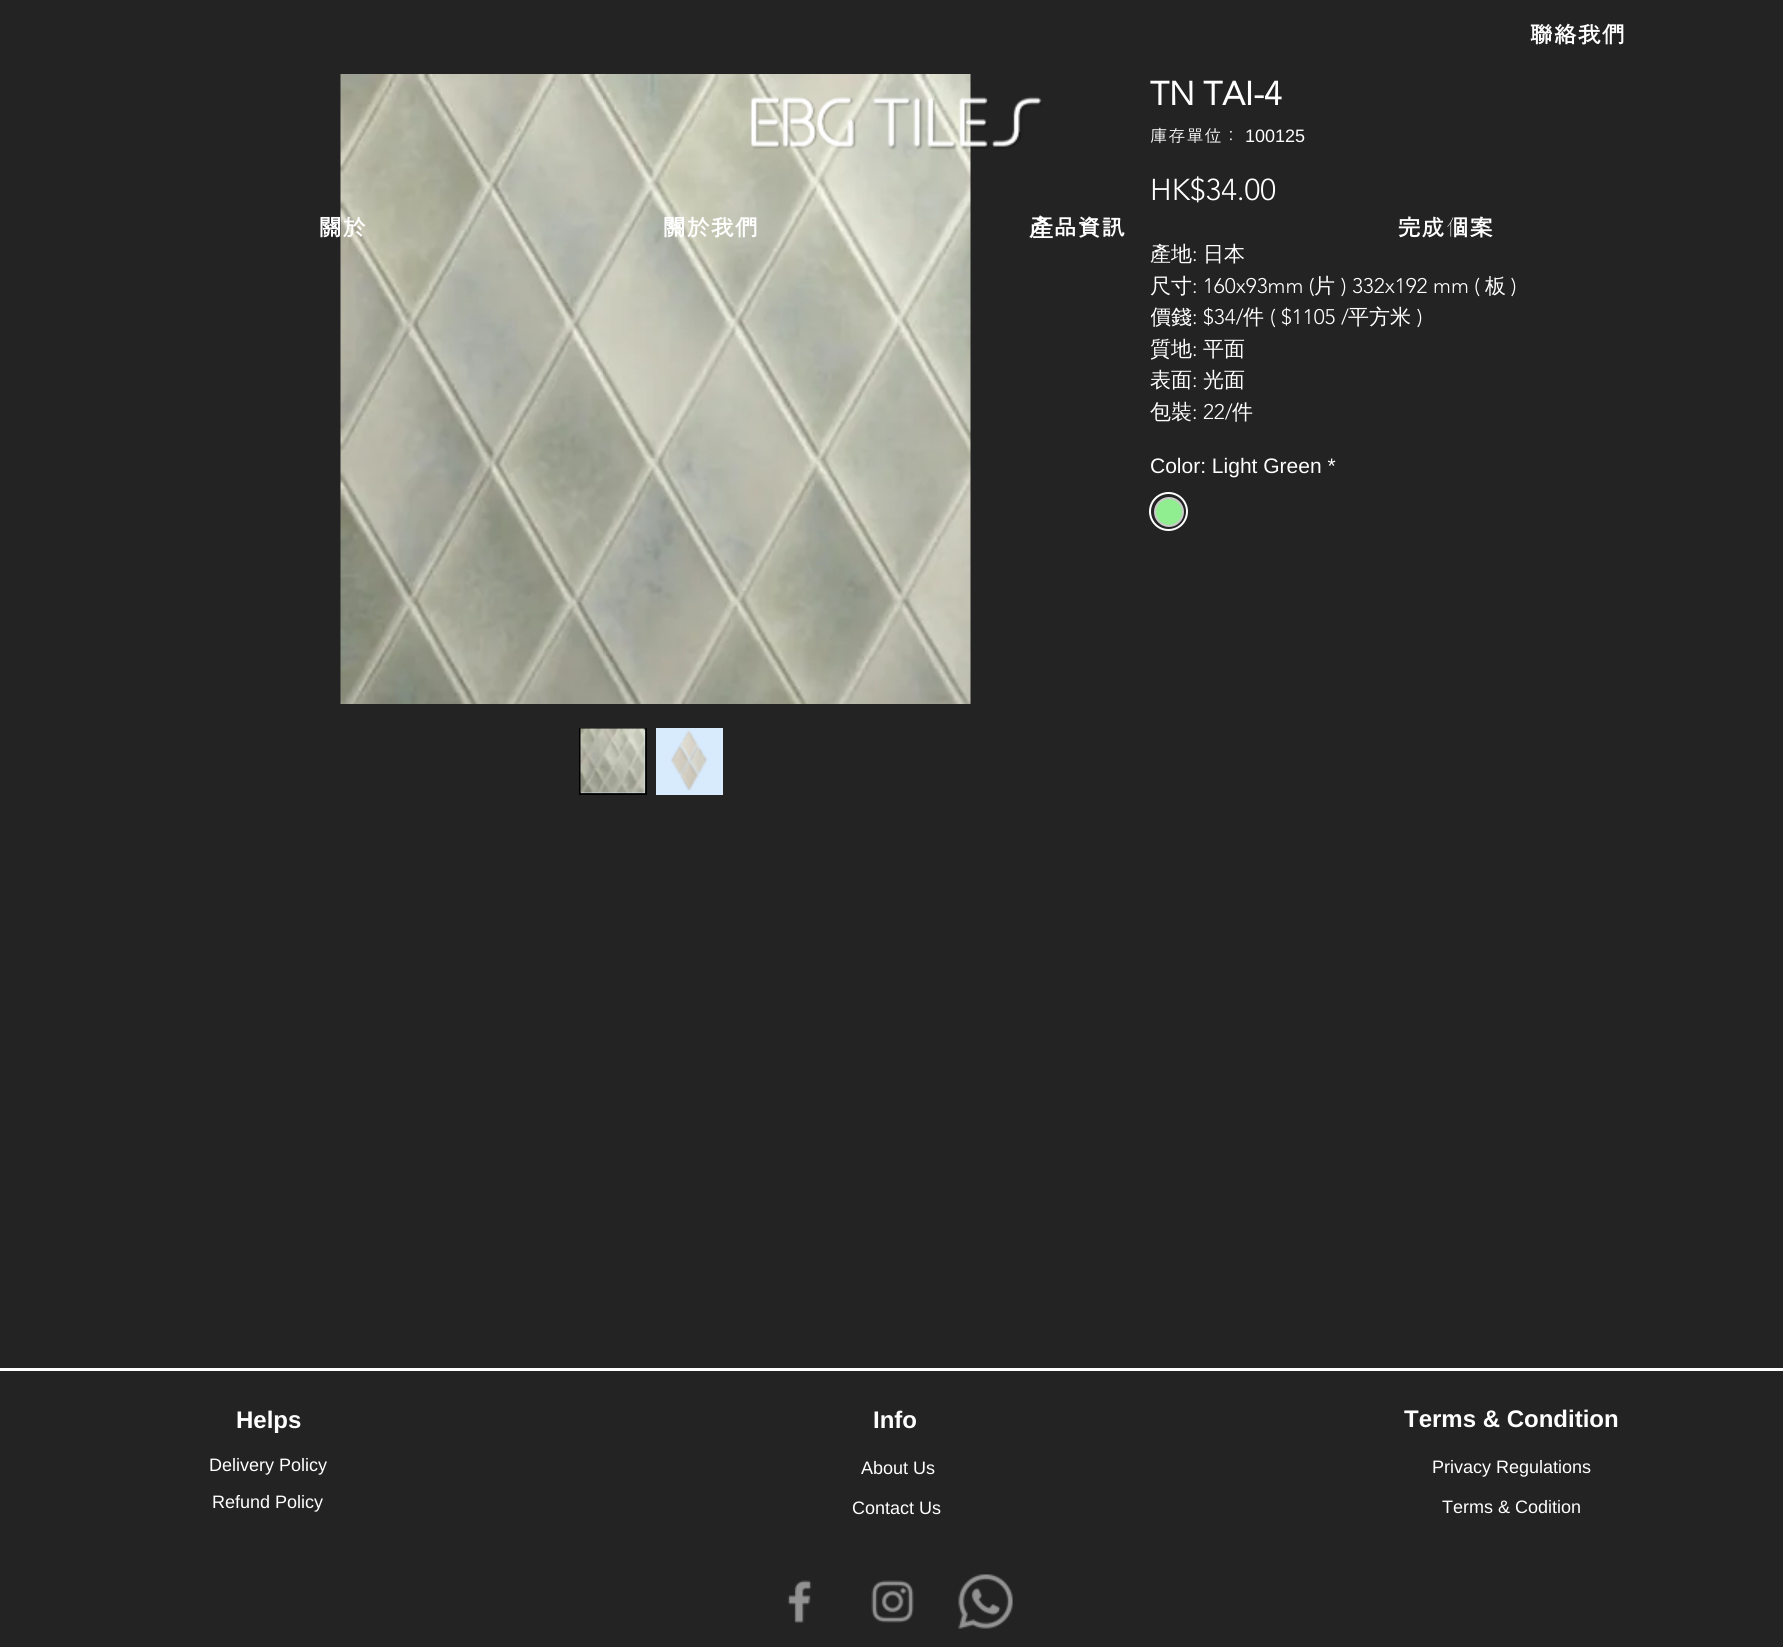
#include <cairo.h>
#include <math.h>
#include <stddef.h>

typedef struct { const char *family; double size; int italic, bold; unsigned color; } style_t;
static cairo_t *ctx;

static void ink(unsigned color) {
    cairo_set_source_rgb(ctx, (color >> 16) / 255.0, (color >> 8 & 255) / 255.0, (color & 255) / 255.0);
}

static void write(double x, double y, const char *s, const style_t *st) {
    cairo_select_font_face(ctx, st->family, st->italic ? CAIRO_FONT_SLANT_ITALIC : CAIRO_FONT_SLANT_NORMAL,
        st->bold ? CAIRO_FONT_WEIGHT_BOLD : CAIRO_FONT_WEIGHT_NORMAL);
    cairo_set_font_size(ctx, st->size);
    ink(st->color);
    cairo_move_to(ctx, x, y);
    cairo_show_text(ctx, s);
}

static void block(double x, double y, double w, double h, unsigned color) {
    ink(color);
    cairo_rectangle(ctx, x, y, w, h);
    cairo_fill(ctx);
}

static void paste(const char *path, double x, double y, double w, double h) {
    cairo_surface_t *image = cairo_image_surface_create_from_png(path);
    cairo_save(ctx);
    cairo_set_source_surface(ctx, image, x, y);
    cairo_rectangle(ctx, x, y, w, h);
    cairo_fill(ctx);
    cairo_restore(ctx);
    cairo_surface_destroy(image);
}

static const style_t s1 = {"Dotum", 24, 0, 1, 0xffffff};
static const style_t s2 = {"WenQuanYi Zen Hei", 24, 0, 1, 0xffffff};
static const style_t s3 = {"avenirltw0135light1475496", 33, 0, 1, 0xffffff};
static const style_t s4 = {"Dotum", 18, 0, 0, 0xffffff};
static const style_t s5 = {"Liberation Sans", 18, 0, 0, 0xffffff};
static const style_t s6 = {"avenirltw0135light1475496 Light", 30, 0, 0, 0xffffff};
static const style_t s7 = {"WenQuanYi Zen Hei Medium", 21, 0, 0, 0xffffff};
static const style_t s8 = {"avenirltw0135light1475496 Light", 21, 0, 0, 0xffffff};
static const style_t s9 = {"Liberation Sans", 21, 0, 0, 0xffffff};
static const style_t s10 = {"Liberation Sans", 24, 0, 1, 0xffffff};

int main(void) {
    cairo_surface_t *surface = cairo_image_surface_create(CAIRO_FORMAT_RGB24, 1783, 1647);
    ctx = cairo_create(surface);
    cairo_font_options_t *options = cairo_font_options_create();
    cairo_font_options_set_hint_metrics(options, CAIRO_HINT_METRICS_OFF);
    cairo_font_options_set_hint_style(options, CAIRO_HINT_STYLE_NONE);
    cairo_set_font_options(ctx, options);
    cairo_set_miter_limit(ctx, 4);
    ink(0x232323);
    cairo_paint(ctx);
    write(1529, 43, "聯絡我們", &s1);
    paste("pic2.png", 340, 74, 631, 630);
    paste("pic1.png", 750, 96, 292, 54);
    write(318, 236, "關於", &s1);
    write(662, 236, "關於我們", &s1);
    write(1029, 236, "產", &s2);
    write(1053, 236, "品資訊", &s1);
    write(1397, 236, "完成個案", &s1);
    ink(0xd8ebfd);
    cairo_rectangle(ctx, 580, 729, 66, 65);
    cairo_fill_preserve(ctx);
    ink(0x000000);
    cairo_stroke(ctx);
    paste("pic3.png", 580, 728, 66, 66);
    block(656, 728, 67, 67, 0xd8ebfd);
    paste("pic4.png", 670, 730, 38, 61);
    write(1150, 105, "TN TAI-4", &s3);
    write(1150, 142, "庫存單位：", &s4);
    write(1245, 142, "100125", &s5);
    write(1150, 200, "HK$34.00", &s6);
    write(1150, 261, "產地", &s7);
    write(1192, 261, ":", &s8);
    write(1203, 261, "日本", &s7);
    write(1150, 293, "尺寸", &s7);
    write(1192, 293, ": 160x93mm (", &s8);
    write(1314, 293, "片", &s7);
    write(1341, 293, ") 332x192 mm (", &s8);
    write(1485, 293, "板", &s7);
    write(1511, 293, ")", &s8);
    cairo_save(ctx);
    cairo_rectangle(ctx, 1151, 239, 366, 189);
    cairo_clip(ctx);
    write(1150, 324, "價錢", &s7);
    cairo_restore(ctx);
    write(1192, 324, ": $34/", &s8);
    write(1243, 324, "件", &s7);
    write(1270, 324, "( $1105 /", &s8);
    write(1348, 324, "平方米", &s7);
    write(1417, 324, ")", &s8);
    cairo_save(ctx);
    cairo_rectangle(ctx, 1151, 239, 366, 189);
    cairo_clip(ctx);
    write(1150, 356, "質地", &s7);
    cairo_restore(ctx);
    write(1192, 356, ":", &s8);
    write(1203, 356, "平面", &s7);
    write(1150, 387, "表面", &s7);
    write(1192, 387, ":", &s8);
    write(1203, 387, "光面", &s7);
    write(1150, 419, "包裝", &s7);
    write(1192, 419, ": 22/", &s8);
    write(1232, 419, "件", &s7);
    write(1150, 473, "Color: Light Green *", &s9);
    cairo_new_path(ctx);
    cairo_arc(ctx, 1168.5, 511.5, 18.5, 0, 2 * M_PI);
    cairo_stroke(ctx);
    ink(0x90ee90);
    cairo_arc(ctx, 1169, 512, 14, 0, 2 * M_PI);
    cairo_fill_preserve(ctx);
    ink(0xc9c9c9);
    cairo_stroke(ctx);
    block(0, 1368, 1783, 3, 0xffffff);
    write(236, 1428, "Helps", &s10);
    write(873, 1428, "Info", &s10);
    write(1404, 1427, "Terms & Condition", &s10);
    write(209, 1471, "Delivery Policy", &s5);
    write(861, 1474, "About Us", &s5);
    write(1432, 1473, "Privacy Regulations", &s5);
    write(212, 1508, "Refund Policy", &s5);
    write(852, 1514, "Contact Us", &s5);
    write(1442, 1513, "Terms & Codition", &s5);
    paste("pic5.png", 787, 1580, 25, 43);
    paste("pic6.png", 871, 1580, 43, 43);
    paste("pic7.png", 958, 1574, 55, 55);
    cairo_surface_write_to_png(surface, "screenshot.png");
    cairo_font_options_destroy(options);
    cairo_destroy(ctx);
    cairo_surface_destroy(surface);
    return 0;
}
